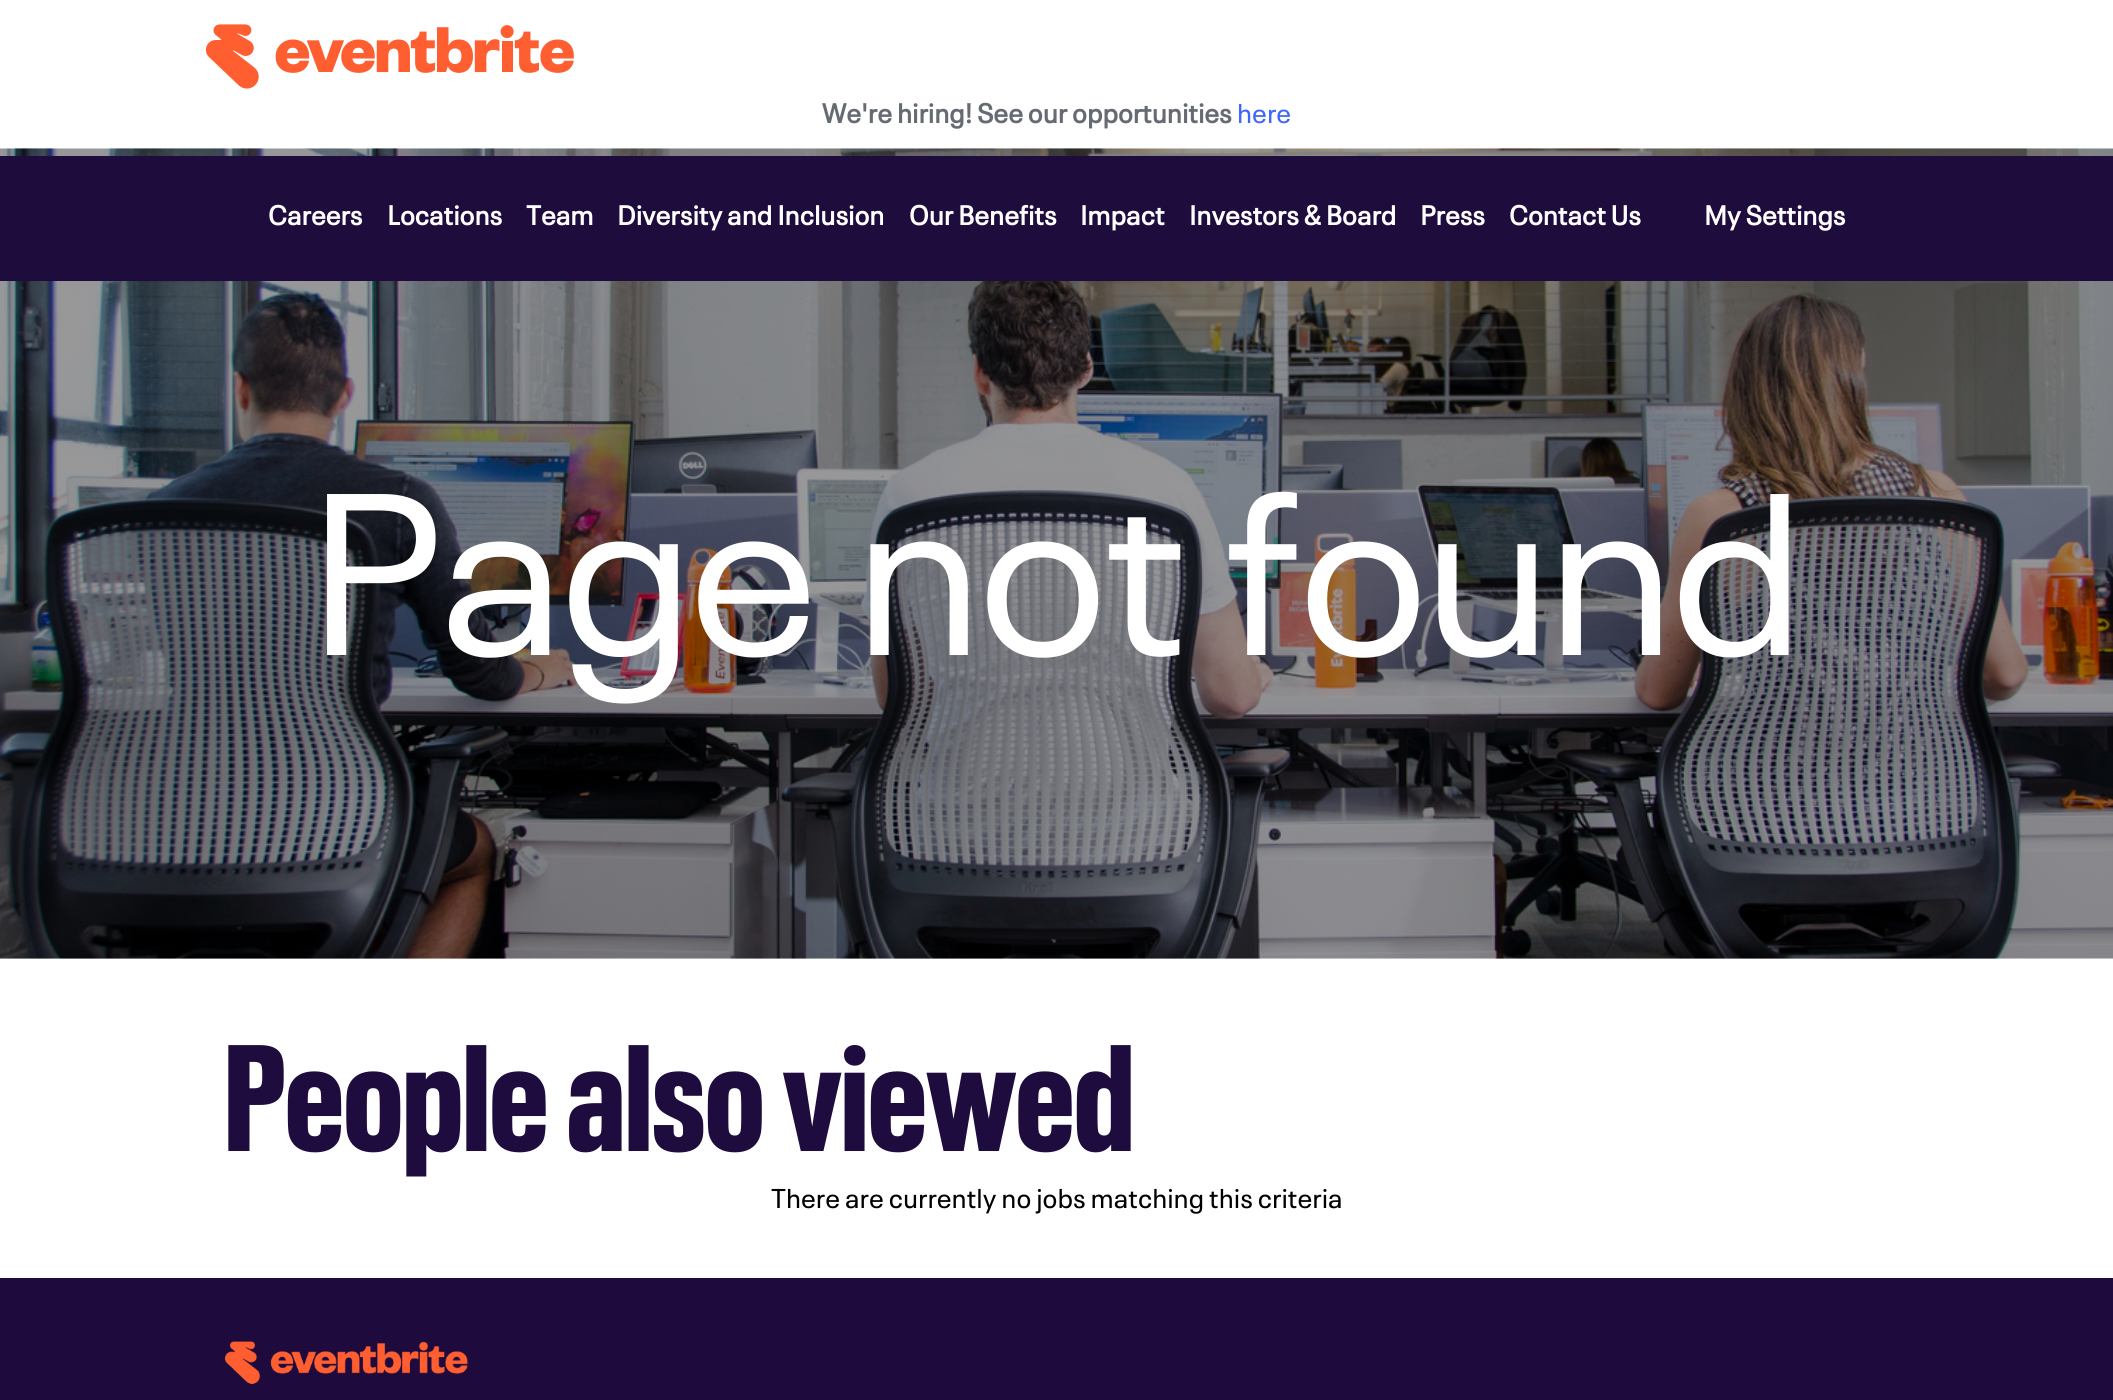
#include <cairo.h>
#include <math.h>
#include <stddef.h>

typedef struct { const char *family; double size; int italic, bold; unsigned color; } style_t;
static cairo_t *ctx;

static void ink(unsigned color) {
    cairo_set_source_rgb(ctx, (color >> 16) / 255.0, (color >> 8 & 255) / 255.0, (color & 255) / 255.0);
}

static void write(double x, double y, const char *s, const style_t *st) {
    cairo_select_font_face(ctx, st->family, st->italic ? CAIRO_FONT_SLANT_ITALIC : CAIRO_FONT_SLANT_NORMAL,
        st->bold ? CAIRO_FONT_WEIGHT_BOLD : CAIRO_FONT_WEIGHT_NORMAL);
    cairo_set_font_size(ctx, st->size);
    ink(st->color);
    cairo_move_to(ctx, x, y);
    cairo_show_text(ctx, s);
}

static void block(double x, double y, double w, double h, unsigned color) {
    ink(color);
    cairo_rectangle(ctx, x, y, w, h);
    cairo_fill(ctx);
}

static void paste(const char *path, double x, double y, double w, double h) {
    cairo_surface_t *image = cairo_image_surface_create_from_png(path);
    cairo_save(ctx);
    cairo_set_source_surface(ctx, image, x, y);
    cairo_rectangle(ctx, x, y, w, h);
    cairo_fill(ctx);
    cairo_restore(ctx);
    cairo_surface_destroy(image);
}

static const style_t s1 = {"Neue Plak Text", 27, 0, 1, 0x666a73};
static const style_t s2 = {"Neue Plak Text", 27, 0, 0, 0x3d64ff};
static const style_t s3 = {"Neue Plak Text", 27, 0, 1, 0xffffff};
static const style_t s4 = {"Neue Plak", 228, 0, 0, 0xffffff};
static const style_t s5 = {"Neue Plak Black", 150, 0, 0, 0x1e0c3f};
static const style_t s6 = {"Neue Plak Text", 27, 0, 0, 0x000000};

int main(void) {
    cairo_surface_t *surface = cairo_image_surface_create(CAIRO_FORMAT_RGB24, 2113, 1400);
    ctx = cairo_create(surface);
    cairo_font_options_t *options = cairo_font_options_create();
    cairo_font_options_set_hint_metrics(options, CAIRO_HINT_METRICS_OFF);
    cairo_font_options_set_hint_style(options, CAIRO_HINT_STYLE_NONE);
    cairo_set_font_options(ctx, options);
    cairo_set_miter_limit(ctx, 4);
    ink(0xffffff);
    cairo_paint(ctx);
    paste("pic1.png", 206, 24, 368, 65);
    write(822, 123, "We're hiring! See our opportunities", &s1);
    write(1237, 123, "here", &s2);
    paste("pic2.png", 0, 148, 2113, 811);
    block(0, 156, 2113, 125, 0x1e0c3c);
    write(268, 225, "Careers", &s3);
    write(387, 225, "Locations", &s3);
    write(526, 225, "Team", &s3);
    write(617, 225, "Diversity and Inclusion", &s3);
    write(909, 225, "Our Benefits", &s3);
    write(1080, 225, "Impact", &s3);
    write(1189, 225, "Investors & Board", &s3);
    write(1420, 225, "Press", &s3);
    write(1509, 225, "Contact Us", &s3);
    write(1704, 225, "My Settings", &s3);
    write(312, 655, "Page not found", &s4);
    write(224, 1151, "People also viewed", &s5);
    write(771, 1208, "There are currently no jobs matching this criteria", &s6);
    block(0, 1278, 2113, 122, 0x1e0a3c);
    paste("pic3.png", 225, 1341, 243, 43);
    cairo_surface_write_to_png(surface, "screenshot.png");
    cairo_font_options_destroy(options);
    cairo_destroy(ctx);
    cairo_surface_destroy(surface);
    return 0;
}
